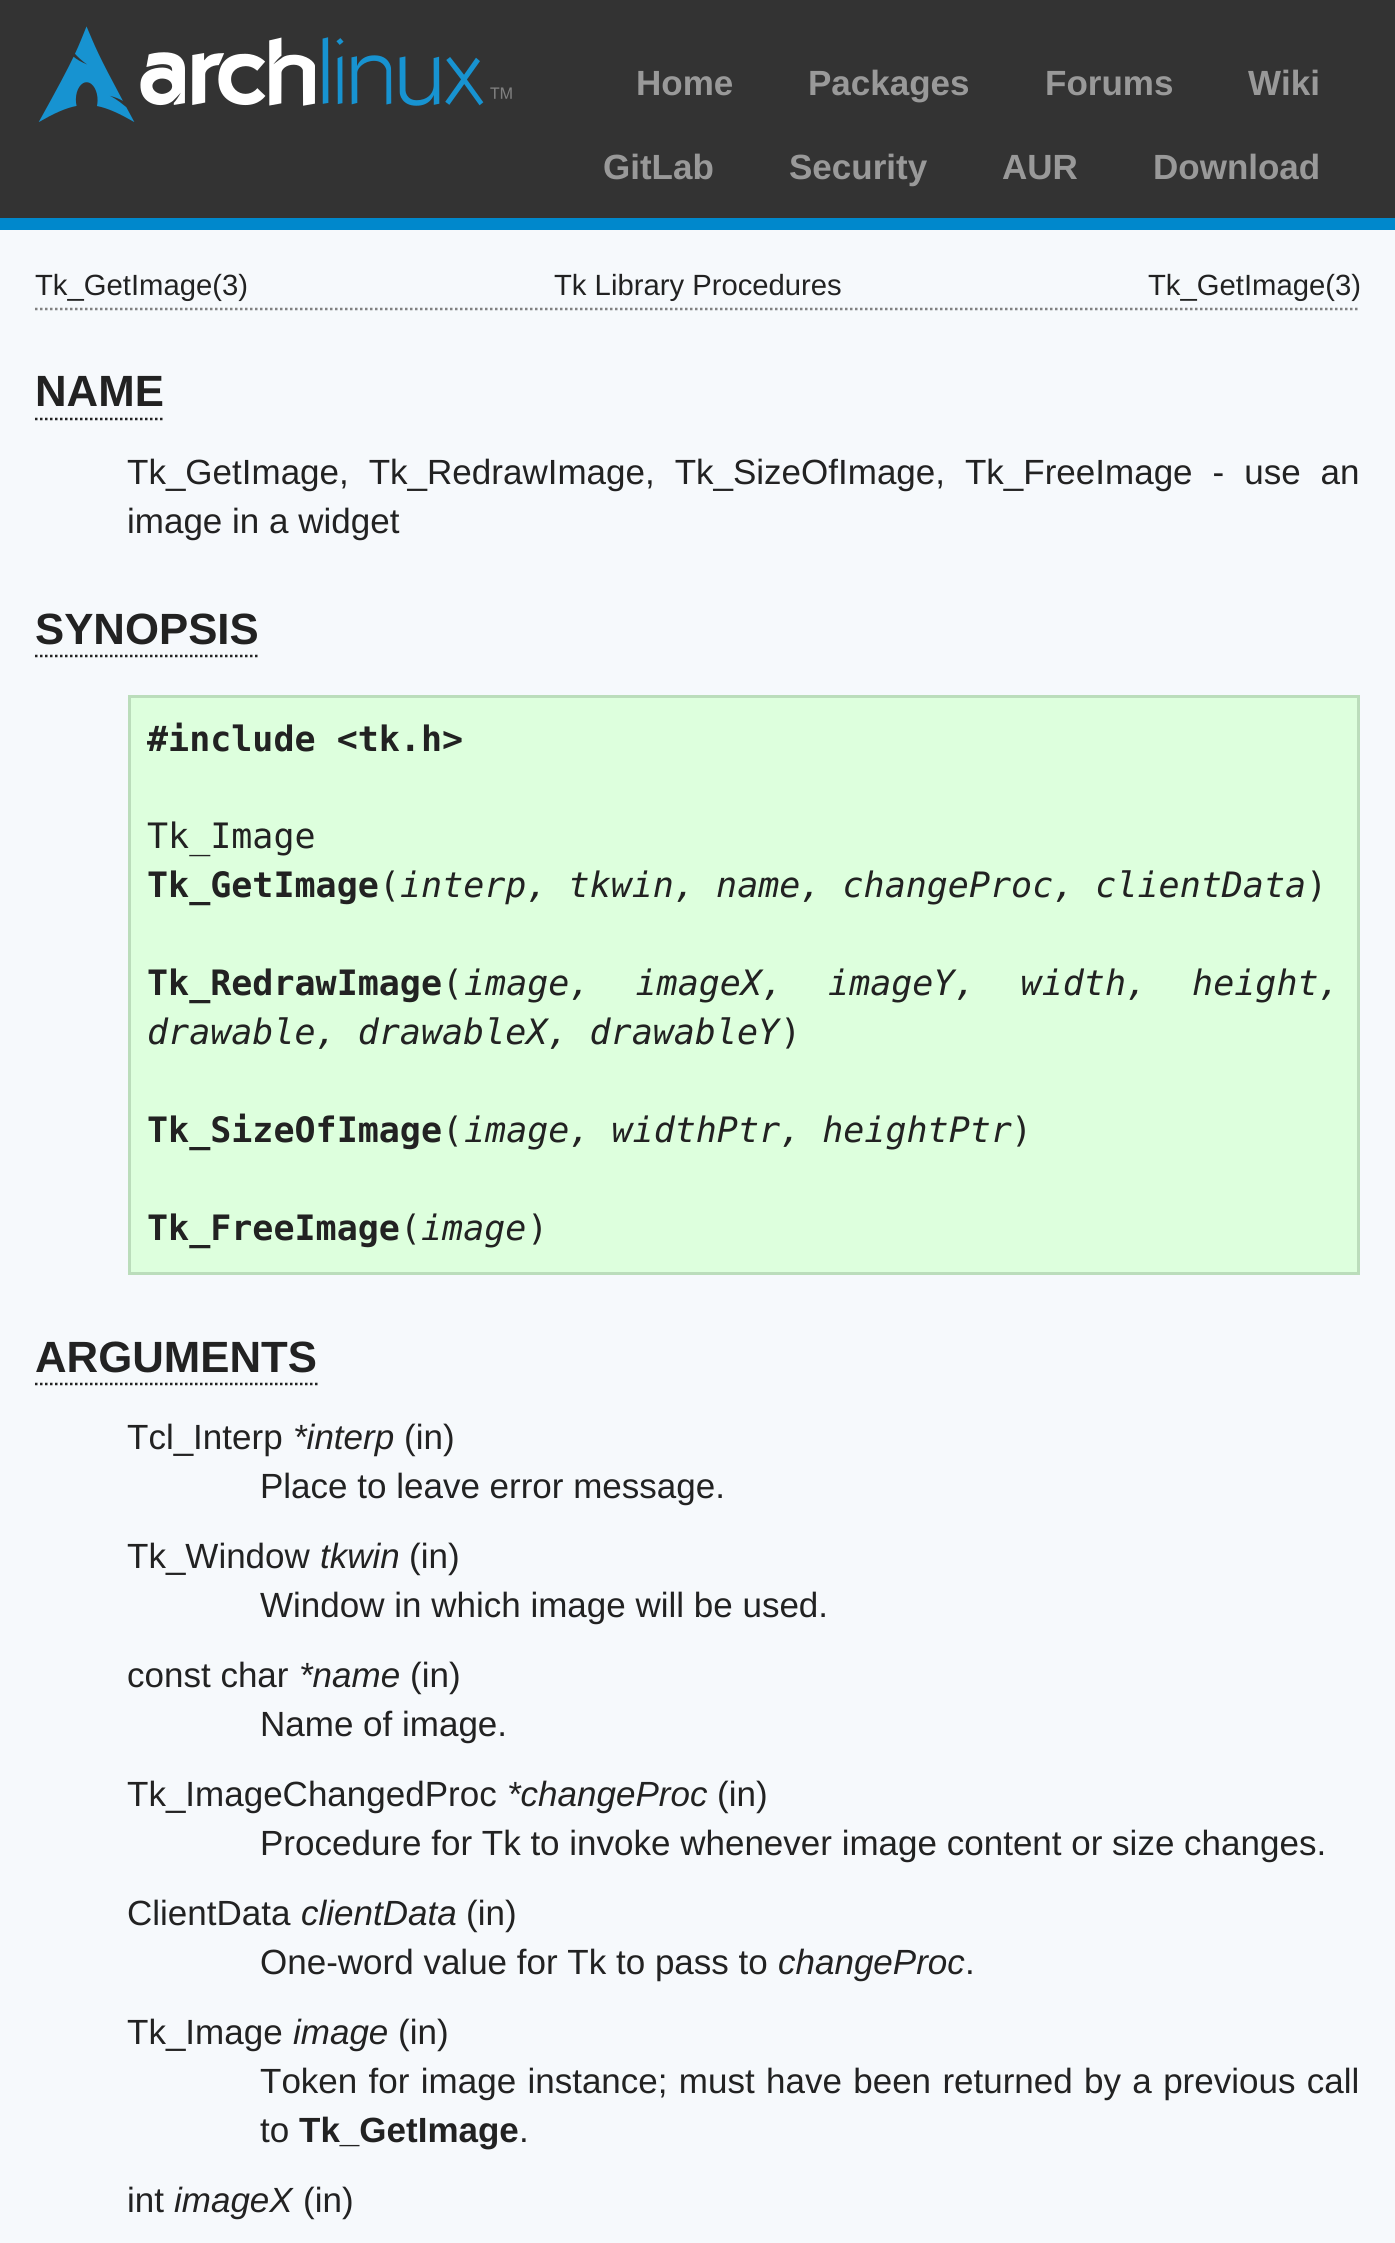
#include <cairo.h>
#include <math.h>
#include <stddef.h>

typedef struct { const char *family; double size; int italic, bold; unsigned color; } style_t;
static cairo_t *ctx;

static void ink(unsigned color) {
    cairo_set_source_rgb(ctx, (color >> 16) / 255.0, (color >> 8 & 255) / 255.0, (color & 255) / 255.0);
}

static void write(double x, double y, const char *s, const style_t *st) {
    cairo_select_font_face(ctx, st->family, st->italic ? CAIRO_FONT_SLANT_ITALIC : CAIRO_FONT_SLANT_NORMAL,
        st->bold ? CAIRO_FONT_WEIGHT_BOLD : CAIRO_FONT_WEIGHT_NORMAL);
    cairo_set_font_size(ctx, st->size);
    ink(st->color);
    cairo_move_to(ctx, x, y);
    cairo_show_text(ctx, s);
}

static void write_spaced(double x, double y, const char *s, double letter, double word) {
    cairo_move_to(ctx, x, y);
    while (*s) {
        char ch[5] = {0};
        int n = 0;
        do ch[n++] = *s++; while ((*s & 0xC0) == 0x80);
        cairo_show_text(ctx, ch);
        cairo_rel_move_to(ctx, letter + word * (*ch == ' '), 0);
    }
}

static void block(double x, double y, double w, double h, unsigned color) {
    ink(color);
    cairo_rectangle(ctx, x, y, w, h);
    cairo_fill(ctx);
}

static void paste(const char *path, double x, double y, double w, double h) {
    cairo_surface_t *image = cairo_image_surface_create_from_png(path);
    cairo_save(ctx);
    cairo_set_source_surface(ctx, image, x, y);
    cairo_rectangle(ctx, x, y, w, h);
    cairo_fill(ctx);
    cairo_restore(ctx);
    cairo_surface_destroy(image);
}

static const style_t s1 = {"Liberation Sans", 35, 0, 1, 0x999999};
static const style_t s2 = {"Liberation Sans", 29.25, 0, 0, 0x222222};
static const style_t s3 = {"Liberation Sans", 43.75, 0, 1, 0x222222};
static const style_t s4 = {"Liberation Sans", 35, 0, 0, 0x222222};
static const style_t s5 = {"DejaVu Sans Mono", 35, 0, 1, 0x222222};
static const style_t s6 = {"DejaVu Sans Mono", 35, 0, 0, 0x222222};
static const style_t s7 = {"DejaVu Sans Mono", 35, 1, 0, 0x222222};
static const style_t s8 = {"Liberation Sans", 35, 1, 0, 0x222222};
static const style_t s9 = {"Liberation Sans", 35, 0, 1, 0x222222};

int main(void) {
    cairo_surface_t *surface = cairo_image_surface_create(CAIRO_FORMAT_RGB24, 1395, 2243);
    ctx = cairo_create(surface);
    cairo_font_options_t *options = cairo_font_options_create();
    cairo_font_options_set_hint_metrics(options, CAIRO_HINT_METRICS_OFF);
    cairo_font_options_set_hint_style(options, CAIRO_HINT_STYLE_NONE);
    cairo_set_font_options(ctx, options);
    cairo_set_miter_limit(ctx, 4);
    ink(0xf6f9fc);
    cairo_paint(ctx);
    block(0, 0, 1395, 218, 0x333333);
    block(0, 218, 1395, 12, 0x0088cc);
    paste("pic1.png", 38, 26, 474, 96);
    write(636, 95, "Home", &s1);
    write(808, 95, "Packages", &s1);
    write(1045, 95, "Forums", &s1);
    write(1248, 95, "Wiki", &s1);
    write(603, 179, "GitLab", &s1);
    write(789, 179, "Security", &s1);
    write(1002, 179, "AUR", &s1);
    write(1153, 179, "Download", &s1);
    cairo_new_path(ctx);
    cairo_move_to(ctx, 35, 309);
    cairo_line_to(ctx, 1360, 309);
    ink(0x808080);
    cairo_set_line_width(ctx, 2.5);
    cairo_set_dash(ctx, (double[]){2.5, 2.5}, 2, 0);
    cairo_stroke(ctx);
    write(35, 295, "Tk_GetImage(3)", &s2);
    write(554, 295, "Tk Library Procedures", &s2);
    write(1148, 295, "Tk_GetImage(3)", &s2);
    write(35, 406, "NAME", &s3);
    cairo_new_path(ctx);
    cairo_move_to(ctx, 35, 419);
    cairo_line_to(ctx, 165, 419);
    cairo_stroke(ctx);
    cairo_select_font_face(ctx, "Liberation Sans", CAIRO_FONT_SLANT_NORMAL, CAIRO_FONT_WEIGHT_NORMAL);
    cairo_set_font_size(ctx, 35);
    write_spaced(127, 484, "Tk_GetImage, Tk_RedrawImage, Tk_SizeOfImage, Tk_FreeImage - use an", 0, 10.25);
    write(127, 533, "image in a widget", &s4);
    write(35, 644, "SYNOPSIS", &s3);
    cairo_new_path(ctx);
    cairo_move_to(ctx, 35, 656);
    cairo_line_to(ctx, 257.5, 656);
    cairo_stroke(ctx);
    ink(0xddffdd);
    cairo_rectangle(ctx, 129.5, 696.5, 1229, 577);
    cairo_fill_preserve(ctx);
    ink(0xbbddbb);
    cairo_set_line_width(ctx, 3);
    cairo_set_dash(ctx, NULL, 0, 0);
    cairo_stroke(ctx);
    write(147, 751, "#include <tk.h>", &s5);
    write(147, 848, "Tk_Image", &s6);
    write(147, 897, "Tk_GetImage", &s5);
    write(379, 897, "(", &s6);
    write(400, 897, "interp, tkwin, name, changeProc, clientData", &s7);
    write(1306, 897, ")", &s6);
    write(147, 995, "Tk_RedrawImage", &s5);
    write(442, 995, "(", &s6);
    cairo_select_font_face(ctx, "DejaVu Sans Mono", CAIRO_FONT_SLANT_ITALIC, CAIRO_FONT_WEIGHT_NORMAL);
    write_spaced(464, 995, "image, imageX, imageY, width, height,", 0, 24);
    write(147, 1044, "drawable, drawableX, drawableY", &s7);
    write(780, 1044, ")", &s6);
    write(147, 1142, "Tk_SizeOfImage", &s5);
    write(442, 1142, "(", &s6);
    write(464, 1142, "image, widthPtr, heightPtr", &s7);
    write(1011, 1142, ")", &s6);
    write(147, 1240, "Tk_FreeImage", &s5);
    write(400, 1240, "(", &s6);
    write(421, 1240, "image", &s7);
    write(527, 1240, ")", &s6);
    write(35, 1372, "ARGUMENTS", &s3);
    cairo_new_path(ctx);
    cairo_move_to(ctx, 35, 1384);
    cairo_line_to(ctx, 317.5, 1384);
    cairo_set_line_width(ctx, 2.5);
    cairo_set_dash(ctx, (double[]){2.5, 2.5}, 2, 0);
    cairo_stroke(ctx);
    write(127, 1449, "Tcl_Interp", &s4);
    write(293, 1449, "*interp", &s8);
    write(404, 1449, "(in)", &s4);
    write(260, 1498, "Place to leave error message.", &s4);
    write(127, 1568, "Tk_Window", &s4);
    write(320, 1568, "tkwin", &s8);
    write(409, 1568, "(in)", &s4);
    write(260, 1617, "Window in which image will be used.", &s4);
    write(127, 1687, "const char", &s4);
    write(299, 1687, "*name", &s8);
    write(410, 1687, "(in)", &s4);
    write(260, 1736, "Name of image.", &s4);
    write(127, 1806, "Tk_ImageChangedProc", &s4);
    write(507, 1806, "*changeProc", &s8);
    write(717, 1806, "(in)", &s4);
    write(260, 1855, "Procedure for Tk to invoke whenever image content or size changes.", &s4);
    write(127, 1925, "ClientData", &s4);
    write(301, 1925, "clientData", &s8);
    write(466, 1925, "(in)", &s4);
    write(260, 1974, "One-word value for Tk to pass to", &s4);
    write(778, 1974, "changeProc", &s8);
    write(965, 1974, ".", &s4);
    write(127, 2044, "Tk_Image", &s4);
    write(293, 2044, "image", &s8);
    write(398, 2044, "(in)", &s4);
    write_spaced(260, 2093, "Token for image instance; must have been returned by a previous call", 0, 1.6);
    write(260, 2142, "to", &s4);
    write(299, 2142, "Tk_GetImage", &s9);
    write(519, 2142, ".", &s4);
    write(127, 2212, "int", &s4);
    write(174, 2212, "imageX", &s8);
    write(303, 2212, "(in)", &s4);
    cairo_surface_write_to_png(surface, "screenshot.png");
    cairo_font_options_destroy(options);
    cairo_destroy(ctx);
    cairo_surface_destroy(surface);
    return 0;
}
